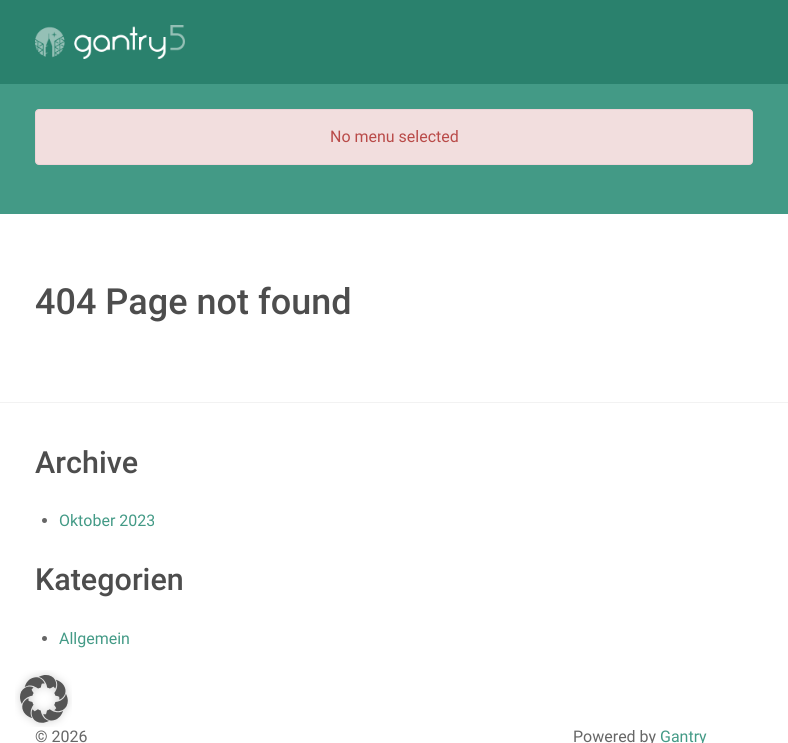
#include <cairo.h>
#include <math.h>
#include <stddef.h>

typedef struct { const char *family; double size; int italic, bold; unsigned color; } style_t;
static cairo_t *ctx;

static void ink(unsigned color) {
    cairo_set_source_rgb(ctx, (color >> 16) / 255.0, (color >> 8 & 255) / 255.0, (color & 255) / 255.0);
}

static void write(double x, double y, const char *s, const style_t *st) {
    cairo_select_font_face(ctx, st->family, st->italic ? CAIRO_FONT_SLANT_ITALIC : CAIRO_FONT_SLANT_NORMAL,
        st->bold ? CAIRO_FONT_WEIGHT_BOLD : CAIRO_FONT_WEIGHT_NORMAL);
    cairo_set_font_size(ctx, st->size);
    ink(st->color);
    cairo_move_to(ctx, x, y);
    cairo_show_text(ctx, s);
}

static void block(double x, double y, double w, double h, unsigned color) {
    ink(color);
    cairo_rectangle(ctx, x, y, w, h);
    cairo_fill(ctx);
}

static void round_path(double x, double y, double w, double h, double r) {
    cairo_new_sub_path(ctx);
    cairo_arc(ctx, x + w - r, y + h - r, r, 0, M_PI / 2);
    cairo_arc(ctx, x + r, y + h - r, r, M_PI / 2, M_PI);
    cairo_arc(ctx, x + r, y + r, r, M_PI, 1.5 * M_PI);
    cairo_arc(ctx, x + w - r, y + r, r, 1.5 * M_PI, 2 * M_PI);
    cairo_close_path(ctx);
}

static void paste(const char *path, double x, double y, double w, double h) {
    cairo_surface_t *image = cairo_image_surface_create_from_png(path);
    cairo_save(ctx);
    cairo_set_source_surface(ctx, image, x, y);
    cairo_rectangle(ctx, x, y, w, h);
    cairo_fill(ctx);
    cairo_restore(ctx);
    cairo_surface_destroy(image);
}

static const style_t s1 = {"Roboto", 16, 0, 0, 0xb94a48};
static const style_t s2 = {"Roboto Medium", 36, 0, 0, 0x4d4d4d};
static const style_t s3 = {"Roboto Medium", 30.5, 0, 0, 0x4d4d4d};
static const style_t s4 = {"Roboto", 16, 0, 0, 0x439a86};
static const style_t s5 = {"Roboto", 16, 0, 0, 0x666666};

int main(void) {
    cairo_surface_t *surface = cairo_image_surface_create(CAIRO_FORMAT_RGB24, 788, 743);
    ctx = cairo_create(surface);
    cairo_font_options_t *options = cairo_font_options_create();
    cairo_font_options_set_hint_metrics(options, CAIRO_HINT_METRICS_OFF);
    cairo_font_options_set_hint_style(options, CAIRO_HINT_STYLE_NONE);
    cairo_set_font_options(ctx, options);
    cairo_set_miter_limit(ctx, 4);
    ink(0xffffff);
    cairo_paint(ctx);
    block(0, 0, 788, 84, 0x2a816d);
    paste("pic1.png", 35, 25, 150, 34);
    block(0, 84, 788, 130, 0x439a86);
    ink(0xf2dede);
    round_path(35.5, 109.5, 717, 55, 3.5);
    cairo_fill_preserve(ctx);
    ink(0xeed3d7);
    cairo_set_line_width(ctx, 1);
    cairo_stroke(ctx);
    write(330, 142, "No menu selected", &s1);
    write(35, 314, "404 Page not found", &s2);
    block(0, 402, 788, 1, 0xf2f2f2);
    write(35, 473, "Archive", &s3);
    ink(0x666666);
    cairo_new_path(ctx);
    cairo_arc(ctx, 44.5, 520.5, 2.5, 0, 2 * M_PI);
    cairo_fill(ctx);
    write(59, 526, "Oktober 2023", &s4);
    write(35, 590, "Kategorien", &s3);
    ink(0x666666);
    cairo_new_path(ctx);
    cairo_arc(ctx, 44.5, 638.5, 2.5, 0, 2 * M_PI);
    cairo_fill(ctx);
    write(59, 644, "Allgemein", &s4);
    write(35, 742, "© 2026", &s5);
    write(573, 742, "Powered by", &s5);
    write(660, 742, "Gantry", &s4);
    paste("pic2.png", 15, 670, 57, 57);
    cairo_surface_write_to_png(surface, "screenshot.png");
    cairo_font_options_destroy(options);
    cairo_destroy(ctx);
    cairo_surface_destroy(surface);
    return 0;
}
